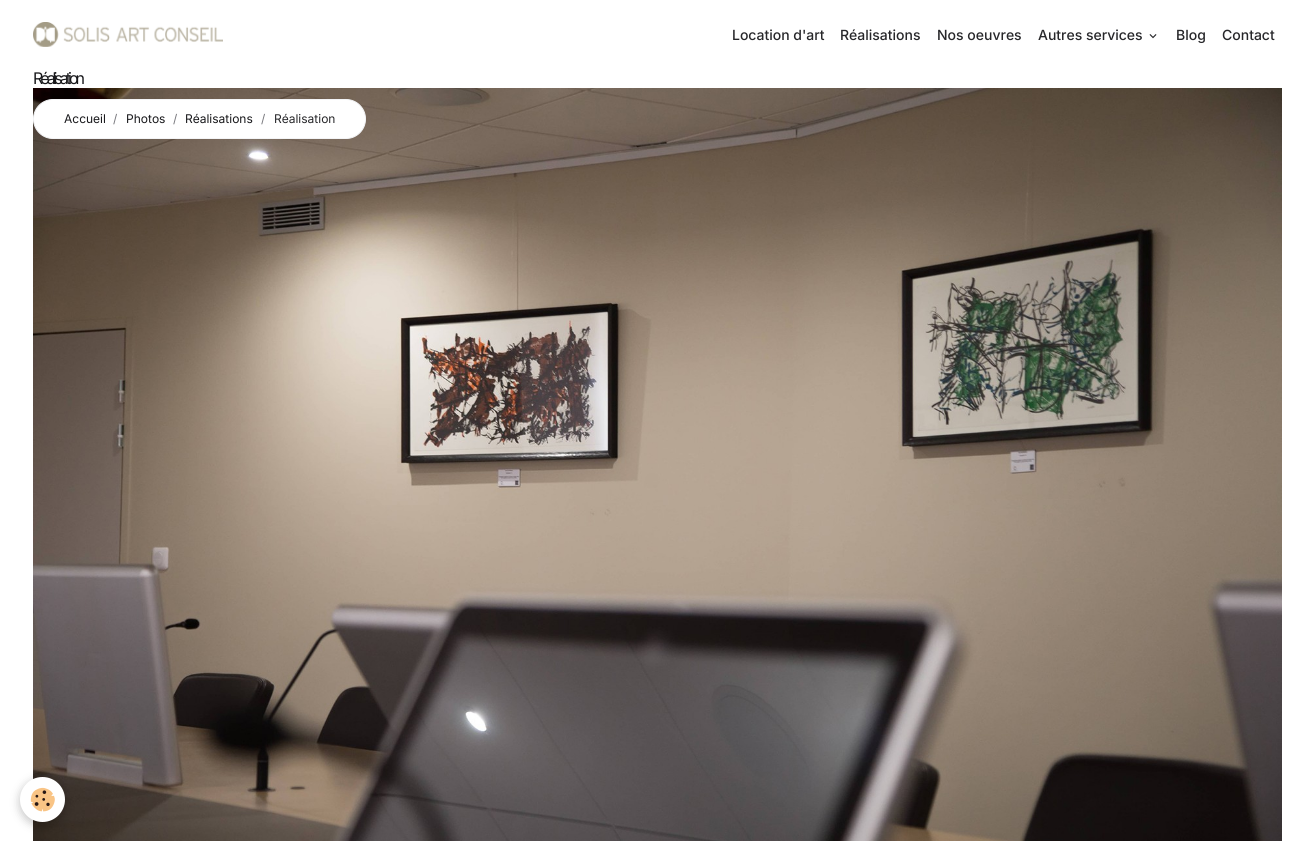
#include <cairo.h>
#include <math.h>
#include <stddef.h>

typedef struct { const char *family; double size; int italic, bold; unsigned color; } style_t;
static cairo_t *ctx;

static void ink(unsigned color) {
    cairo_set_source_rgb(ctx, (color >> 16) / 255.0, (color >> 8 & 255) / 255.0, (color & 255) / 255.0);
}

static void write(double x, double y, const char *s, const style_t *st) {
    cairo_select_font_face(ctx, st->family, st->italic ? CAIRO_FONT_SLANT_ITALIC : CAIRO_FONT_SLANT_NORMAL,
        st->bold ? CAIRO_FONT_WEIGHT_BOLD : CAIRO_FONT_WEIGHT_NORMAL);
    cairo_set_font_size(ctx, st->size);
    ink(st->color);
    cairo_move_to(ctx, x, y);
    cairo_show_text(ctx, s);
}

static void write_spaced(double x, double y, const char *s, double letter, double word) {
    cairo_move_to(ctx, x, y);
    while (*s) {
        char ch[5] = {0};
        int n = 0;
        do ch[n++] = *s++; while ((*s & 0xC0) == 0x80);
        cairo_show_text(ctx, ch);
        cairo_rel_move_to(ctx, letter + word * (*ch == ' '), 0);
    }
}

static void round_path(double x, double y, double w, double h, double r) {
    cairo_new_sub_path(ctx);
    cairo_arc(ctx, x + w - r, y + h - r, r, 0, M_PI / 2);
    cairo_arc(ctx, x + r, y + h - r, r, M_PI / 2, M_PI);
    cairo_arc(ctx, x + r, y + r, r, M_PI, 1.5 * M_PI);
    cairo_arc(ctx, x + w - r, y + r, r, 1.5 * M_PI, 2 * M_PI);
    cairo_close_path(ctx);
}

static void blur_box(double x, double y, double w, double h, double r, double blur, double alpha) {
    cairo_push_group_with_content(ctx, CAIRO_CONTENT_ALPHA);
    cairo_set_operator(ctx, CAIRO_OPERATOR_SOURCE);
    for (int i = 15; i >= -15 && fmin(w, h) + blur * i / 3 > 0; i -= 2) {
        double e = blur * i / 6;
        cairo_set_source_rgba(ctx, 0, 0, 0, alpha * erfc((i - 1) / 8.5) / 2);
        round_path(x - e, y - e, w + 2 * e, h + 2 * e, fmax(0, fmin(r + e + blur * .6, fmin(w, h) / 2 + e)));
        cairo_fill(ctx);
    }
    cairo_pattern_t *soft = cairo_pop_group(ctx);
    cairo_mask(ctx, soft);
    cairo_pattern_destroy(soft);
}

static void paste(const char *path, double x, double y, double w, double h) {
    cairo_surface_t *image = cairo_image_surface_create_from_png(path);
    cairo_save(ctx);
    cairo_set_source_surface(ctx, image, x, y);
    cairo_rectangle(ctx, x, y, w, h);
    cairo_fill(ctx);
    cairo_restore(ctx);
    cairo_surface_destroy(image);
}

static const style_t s1 = {"Inter Medium", 14, 0, 0, 0x27272a};
static const style_t s2 = {"Inter", 12, 0, 0, 0x18181b};
static const style_t s3 = {"Inter", 12, 0, 0, 0x79797e};
static const style_t s4 = {"Inter", 12, 0, 0, 0x27272a};

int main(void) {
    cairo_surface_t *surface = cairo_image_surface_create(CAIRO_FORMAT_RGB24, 1315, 841);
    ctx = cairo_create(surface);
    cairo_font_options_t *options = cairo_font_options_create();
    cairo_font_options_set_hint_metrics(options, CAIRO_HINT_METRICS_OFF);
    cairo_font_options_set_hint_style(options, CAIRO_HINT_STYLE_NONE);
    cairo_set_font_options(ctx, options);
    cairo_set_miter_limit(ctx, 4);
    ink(0xffffff);
    cairo_paint(ctx);
    paste("pic1.png", 33, 22, 190, 25);
    write(732, 40, "Location d'art", &s1);
    write(840, 40, "Réalisations", &s1);
    write(937, 40, "Nos oeuvres", &s1);
    write(1038, 40, "Autres services", &s1);
    paste("pic2.png", 1149, 34, 8, 5);
    write(1176, 40, "Blog", &s1);
    write(1222, 40, "Contact", &s1);
    cairo_select_font_face(ctx, "Inter", CAIRO_FONT_SLANT_NORMAL, CAIRO_FONT_WEIGHT_NORMAL);
    cairo_set_font_size(ctx, 16);
    ink(0x18181b);
    write_spaced(33, 84, "Réalisation", -3, 0);
    paste("pic3.png", 33, 88, 1249, 753);
    ink(0xffffff);
    round_path(33.5, 99.5, 332, 39, 19.5);
    cairo_fill_preserve(ctx);
    ink(0xf3f4f6);
    cairo_set_line_width(ctx, 1);
    cairo_stroke(ctx);
    write(64, 123, "Accueil", &s2);
    write(113, 123, "/", &s3);
    write(126, 123, "Photos", &s2);
    write(173, 123, "/", &s3);
    write(185, 123, "Réalisations", &s2);
    write(261, 123, "/", &s3);
    write(274, 123, "Réalisation", &s4);
    ink(0x000000);
    blur_box(20, 780, 45, 45, 22.5, 5, 0.24);
    ink(0xffffff);
    cairo_arc(ctx, 42.5, 799.5, 22.5, 0, 2 * M_PI);
    cairo_fill(ctx);
    paste("pic4.png", 30, 787, 25, 25);
    cairo_surface_write_to_png(surface, "screenshot.png");
    cairo_font_options_destroy(options);
    cairo_destroy(ctx);
    cairo_surface_destroy(surface);
    return 0;
}
